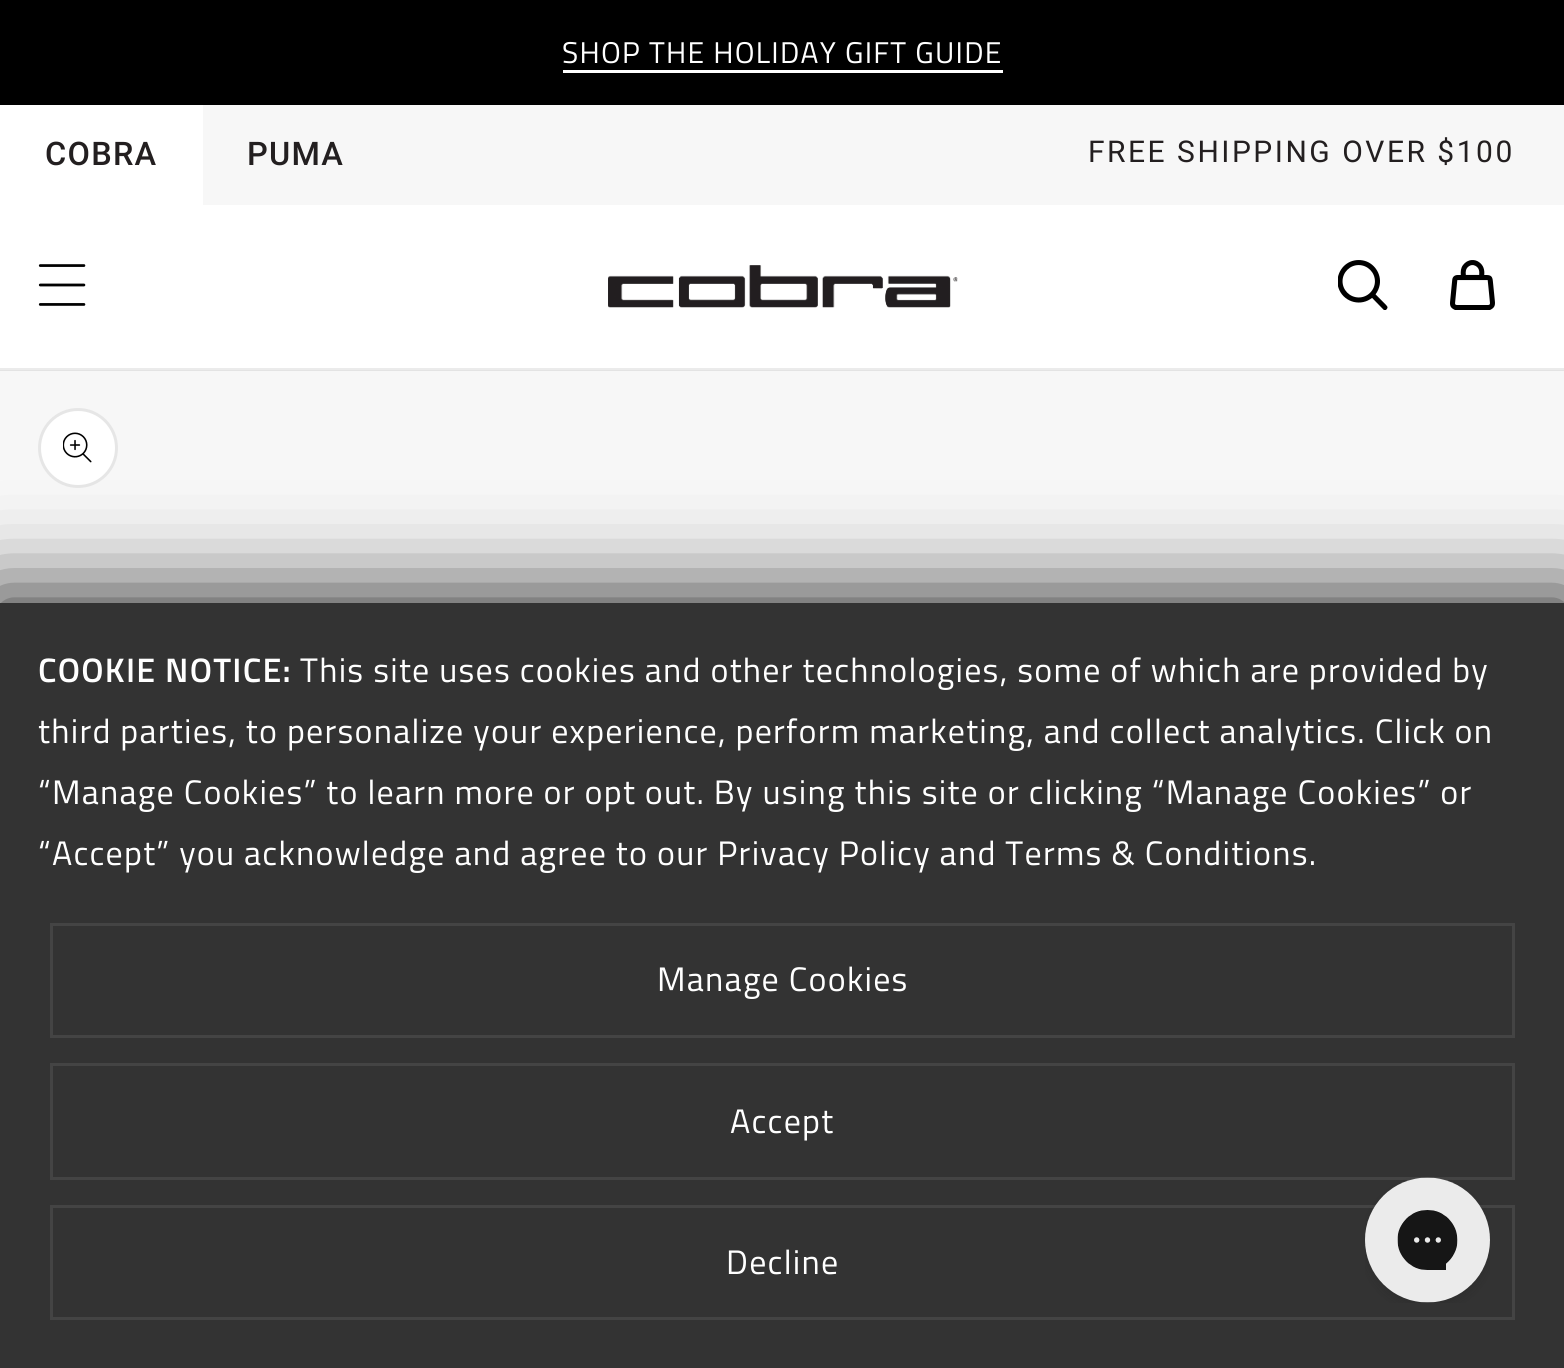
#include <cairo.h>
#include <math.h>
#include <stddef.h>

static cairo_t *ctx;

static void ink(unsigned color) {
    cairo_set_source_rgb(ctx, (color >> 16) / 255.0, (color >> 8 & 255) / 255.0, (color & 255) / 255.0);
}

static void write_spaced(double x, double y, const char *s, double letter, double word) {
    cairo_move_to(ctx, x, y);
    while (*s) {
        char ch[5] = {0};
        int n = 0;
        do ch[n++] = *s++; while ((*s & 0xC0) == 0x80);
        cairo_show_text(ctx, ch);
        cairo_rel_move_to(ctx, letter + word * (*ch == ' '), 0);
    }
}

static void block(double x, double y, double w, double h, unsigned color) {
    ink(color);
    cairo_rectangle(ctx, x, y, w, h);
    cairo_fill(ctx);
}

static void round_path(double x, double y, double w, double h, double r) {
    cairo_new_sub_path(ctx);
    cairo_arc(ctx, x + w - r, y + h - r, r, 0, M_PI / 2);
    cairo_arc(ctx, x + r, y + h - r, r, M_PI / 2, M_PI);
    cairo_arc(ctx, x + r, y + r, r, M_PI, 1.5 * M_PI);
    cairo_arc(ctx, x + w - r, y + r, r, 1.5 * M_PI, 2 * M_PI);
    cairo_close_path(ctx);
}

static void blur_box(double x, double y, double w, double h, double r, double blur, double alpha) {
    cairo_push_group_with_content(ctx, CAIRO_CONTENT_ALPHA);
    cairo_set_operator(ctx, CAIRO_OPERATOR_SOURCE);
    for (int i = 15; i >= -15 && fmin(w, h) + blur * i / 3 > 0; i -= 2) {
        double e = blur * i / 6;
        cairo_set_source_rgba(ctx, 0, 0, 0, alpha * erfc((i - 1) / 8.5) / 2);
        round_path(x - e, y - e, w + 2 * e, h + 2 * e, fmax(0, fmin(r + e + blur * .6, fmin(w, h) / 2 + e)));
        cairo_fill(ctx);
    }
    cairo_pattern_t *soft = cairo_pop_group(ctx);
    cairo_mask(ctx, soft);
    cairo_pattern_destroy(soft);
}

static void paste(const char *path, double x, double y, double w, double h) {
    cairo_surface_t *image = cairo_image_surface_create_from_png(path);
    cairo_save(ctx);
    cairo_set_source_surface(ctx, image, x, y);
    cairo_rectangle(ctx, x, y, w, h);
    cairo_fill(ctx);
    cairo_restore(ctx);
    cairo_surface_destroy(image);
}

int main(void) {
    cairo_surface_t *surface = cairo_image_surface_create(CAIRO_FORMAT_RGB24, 1564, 1368);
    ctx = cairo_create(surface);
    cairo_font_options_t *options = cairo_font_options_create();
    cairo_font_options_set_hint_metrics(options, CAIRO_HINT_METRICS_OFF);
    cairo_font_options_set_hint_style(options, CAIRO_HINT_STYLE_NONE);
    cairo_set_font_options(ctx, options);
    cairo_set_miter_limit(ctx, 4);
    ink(0xffffff);
    cairo_paint(ctx);
    block(0, 368, 1564, 2, 0xebebeb);
    block(0, 0, 1564, 105, 0x000000);
    cairo_select_font_face(ctx, "Titillium Web", CAIRO_FONT_SLANT_NORMAL, CAIRO_FONT_WEIGHT_NORMAL);
    cairo_set_font_size(ctx, 30);
    ink(0xffffff);
    write_spaced(562, 63, "SHOP THE HOLIDAY GIFT GUIDE", 1.25, 0);
    block(563, 70, 440, 3, 0xffffff);
    block(203, 105, 1361, 100, 0xf7f7f7);
    cairo_select_font_face(ctx, "Roboto Medium", CAIRO_FONT_SLANT_NORMAL, CAIRO_FONT_WEIGHT_NORMAL);
    cairo_set_font_size(ctx, 32.5);
    ink(0x231f20);
    write_spaced(45, 165, "COBRA", 1.25, 0);
    write_spaced(247, 165, "PUMA", 1.25, 0);
    cairo_select_font_face(ctx, "Roboto", CAIRO_FONT_SLANT_NORMAL, CAIRO_FONT_WEIGHT_NORMAL);
    cairo_set_font_size(ctx, 30);
    write_spaced(1088, 162, "FREE SHIPPING OVER $100", 2.5, 0);
    paste("pic1.png", 38, 264, 48, 42);
    paste("pic2.png", 608, 265, 350, 43);
    paste("pic3.png", 1338, 260, 50, 50);
    paste("pic4.png", 1450, 260, 45, 50);
    block(0, 371, 1564, 232, 0xf7f7f7);
    block(0, 370, 1564, 1, 0xe3e3e3);
    ink(0xffffff);
    cairo_arc(ctx, 78, 448, 40, 0, 2 * M_PI);
    cairo_fill(ctx);
    cairo_arc(ctx, 78, 448, 38.5, 0, 2 * M_PI);
    cairo_set_source_rgba(ctx, 0, 0, 0, 0.1);
    cairo_set_line_width(ctx, 3);
    cairo_stroke(ctx);
    paste("pic5.png", 63, 432, 29, 31);
    ink(0x000000);
    blur_box(-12, 590, 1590, 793, 0, 44, 0.75);
    block(0, 603, 1564, 765, 0x333333);
    cairo_select_font_face(ctx, "Titillium Web SemiBold", CAIRO_FONT_SLANT_NORMAL, CAIRO_FONT_WEIGHT_NORMAL);
    cairo_set_font_size(ctx, 34);
    ink(0xffffff);
    write_spaced(38, 682, "COOKIE NOTICE:", 1.25, 0);
    cairo_select_font_face(ctx, "Titillium Web", CAIRO_FONT_SLANT_NORMAL, CAIRO_FONT_WEIGHT_NORMAL);
    write_spaced(300, 682, "This site uses cookies and other technologies, some of which are provided by", 1.25, 0);
    write_spaced(38, 743, "third parties, to personalize your experience, perform marketing, and collect analytics. Click on", 1.25, 0);
    write_spaced(38, 804, "“Manage Cookies” to learn more or opt out. By using this site or clicking “Manage Cookies” or", 1.25, 0);
    write_spaced(38, 865, "“Accept” you acknowledge and agree to our Privacy Policy and Terms & Conditions.", 1.25, 0);
    cairo_rectangle(ctx, 51.5, 924.5, 1462, 112);
    ink(0x444444);
    cairo_stroke(ctx);
    ink(0xffffff);
    write_spaced(657, 991, "Manage Cookies", 1.25, 0);
    cairo_rectangle(ctx, 51.5, 1064.5, 1462, 114);
    ink(0x444444);
    cairo_stroke(ctx);
    ink(0xffffff);
    write_spaced(730, 1133, "Accept", 1.25, 0);
    cairo_rectangle(ctx, 51.5, 1206.5, 1462, 112);
    ink(0x444444);
    cairo_stroke(ctx);
    ink(0xffffff);
    write_spaced(726, 1274, "Decline", 1.25, 0);
    paste("pic6.png", 1365, 1177, 125, 126);
    cairo_surface_write_to_png(surface, "screenshot.png");
    cairo_font_options_destroy(options);
    cairo_destroy(ctx);
    cairo_surface_destroy(surface);
    return 0;
}
